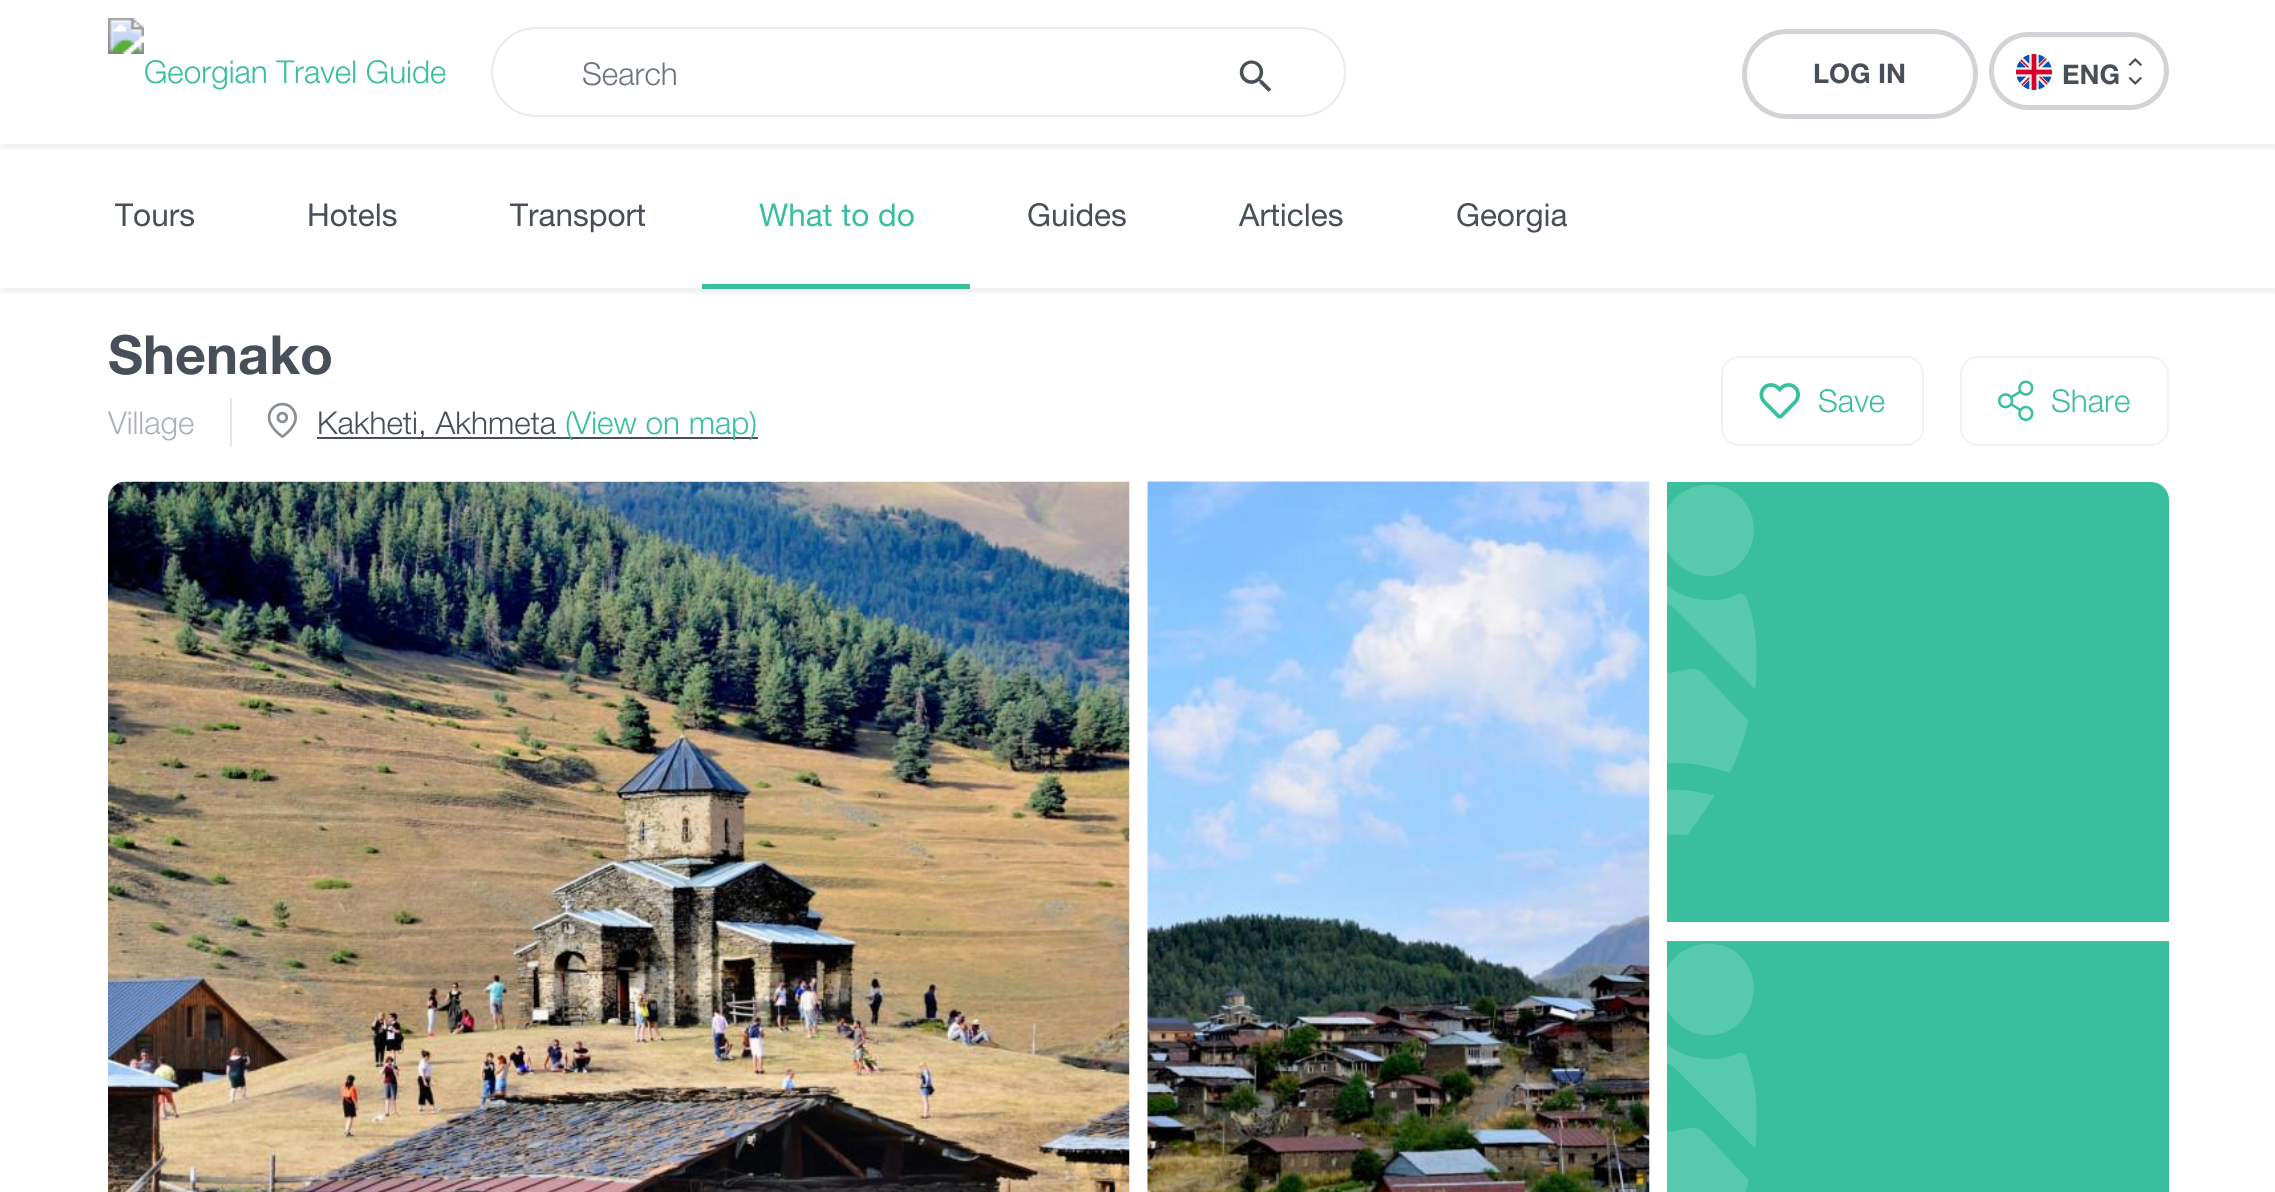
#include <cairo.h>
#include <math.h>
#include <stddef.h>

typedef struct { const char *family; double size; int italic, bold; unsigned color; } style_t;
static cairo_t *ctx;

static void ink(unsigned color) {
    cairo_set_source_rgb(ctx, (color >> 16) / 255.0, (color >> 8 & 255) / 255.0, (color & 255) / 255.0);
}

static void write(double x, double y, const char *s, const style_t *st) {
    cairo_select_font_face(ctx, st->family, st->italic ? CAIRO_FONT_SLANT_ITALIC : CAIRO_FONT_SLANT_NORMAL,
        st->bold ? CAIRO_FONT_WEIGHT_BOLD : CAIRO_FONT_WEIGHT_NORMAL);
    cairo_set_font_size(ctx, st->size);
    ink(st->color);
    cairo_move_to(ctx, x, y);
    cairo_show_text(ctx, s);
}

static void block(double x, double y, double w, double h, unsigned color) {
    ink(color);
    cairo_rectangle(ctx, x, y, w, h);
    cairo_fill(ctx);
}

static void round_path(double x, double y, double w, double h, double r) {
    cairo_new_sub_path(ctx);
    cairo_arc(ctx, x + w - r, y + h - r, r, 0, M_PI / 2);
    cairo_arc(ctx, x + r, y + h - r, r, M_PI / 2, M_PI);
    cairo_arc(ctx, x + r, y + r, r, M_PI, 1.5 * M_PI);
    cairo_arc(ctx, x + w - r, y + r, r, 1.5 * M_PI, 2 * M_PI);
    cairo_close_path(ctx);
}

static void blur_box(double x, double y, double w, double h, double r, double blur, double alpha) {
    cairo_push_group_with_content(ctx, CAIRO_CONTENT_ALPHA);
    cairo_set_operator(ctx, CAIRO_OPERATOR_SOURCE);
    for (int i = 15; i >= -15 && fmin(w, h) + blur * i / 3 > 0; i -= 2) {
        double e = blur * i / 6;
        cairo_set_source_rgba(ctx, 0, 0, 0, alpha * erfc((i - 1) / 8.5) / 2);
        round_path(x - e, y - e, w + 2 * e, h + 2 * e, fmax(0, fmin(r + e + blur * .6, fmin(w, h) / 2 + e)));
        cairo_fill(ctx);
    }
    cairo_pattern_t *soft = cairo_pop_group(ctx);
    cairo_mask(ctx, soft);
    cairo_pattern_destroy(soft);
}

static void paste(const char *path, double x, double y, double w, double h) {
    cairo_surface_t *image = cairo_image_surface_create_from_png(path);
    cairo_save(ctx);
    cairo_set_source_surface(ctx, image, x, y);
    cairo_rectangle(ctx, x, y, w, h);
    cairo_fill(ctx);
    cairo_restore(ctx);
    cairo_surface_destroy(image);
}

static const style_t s1 = {"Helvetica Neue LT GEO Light", 31.5, 0, 0, 0x6c757d};
static const style_t s2 = {"Helvetica Neue LT GEO", 27, 0, 1, 0x484f58};
static const style_t s3 = {"Helvetica Neue LT GEO", 31.5, 0, 0, 0x484f58};
static const style_t s4 = {"Helvetica Neue LT GEO", 31.5, 0, 0, 0x39bf9e};
static const style_t s5 = {"Helvetica Neue LT GEO", 54, 0, 1, 0x484f58};
static const style_t s6 = {"Helvetica Neue LT GEO Light", 31.5, 0, 0, 0xaab2bd};
static const style_t s7 = {"Helvetica Neue LT GEO Light", 31.5, 0, 0, 0x484f58};
static const style_t s8 = {"Helvetica Neue LT GEO Light", 31.5, 0, 0, 0x39bf9e};

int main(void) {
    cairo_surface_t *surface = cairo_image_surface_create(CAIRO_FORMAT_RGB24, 2275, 1192);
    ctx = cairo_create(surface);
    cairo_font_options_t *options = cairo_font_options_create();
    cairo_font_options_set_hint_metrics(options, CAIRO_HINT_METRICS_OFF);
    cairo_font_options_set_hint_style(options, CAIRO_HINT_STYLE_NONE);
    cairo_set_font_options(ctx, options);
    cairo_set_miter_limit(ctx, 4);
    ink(0xffffff);
    cairo_paint(ctx);
    cairo_save(ctx);
    cairo_rectangle(ctx, 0, 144, 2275, 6);
    cairo_clip(ctx);
    ink(0x484f58);
    blur_box(0, 5, 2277, 144, 0, 2, 0.08);
    cairo_restore(ctx);
    paste("pic1.png", 108, 18, 338, 72);
    round_path(492, 28, 853, 88, 44);
    ink(0xe9eaeb);
    cairo_stroke(ctx);
    write(582, 85, "Search", &s1);
    paste("pic2.png", 1239, 60, 33, 32);
    round_path(1744.5, 31.5, 231, 85, 42.5);
    ink(0xd1d3d6);
    cairo_set_line_width(ctx, 5);
    cairo_stroke(ctx);
    write(1813, 83, "LOG IN", &s2);
    round_path(1991.5, 34.5, 175, 73, 36.5);
    ink(0xd1d3d6);
    cairo_stroke(ctx);
    paste("pic3.png", 2016, 54, 36, 36);
    write(2062, 84, "ENG", &s2);
    paste("pic4.png", 2128, 58, 14, 27);
    cairo_save(ctx);
    cairo_rectangle(ctx, 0, 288, 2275, 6);
    cairo_clip(ctx);
    ink(0x484f58);
    blur_box(0, 149, 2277, 144, 0, 2, 0.08);
    cairo_restore(ctx);
    write(115, 226, "Tours", &s3);
    write(307, 226, "Hotels", &s3);
    write(510, 226, "Transport", &s3);
    block(702, 284, 268, 5, 0x39bf9e);
    write(759, 226, "What to do", &s4);
    write(1027, 226, "Guides", &s3);
    write(1239, 226, "Articles", &s3);
    write(1456, 226, "Georgia", &s3);
    write(108, 374, "Shenako", &s5);
    block(230, 398, 2, 48, 0xe3e6e9);
    write(108, 434, "Village", &s6);
    paste("pic5.png", 267, 402, 30, 36);
    block(317, 437, 441, 2, 0x484f58);
    write(317, 434, "Kakheti, Akhmeta", &s7);
    write(565, 434, "(View on map)", &s8);
    round_path(1722, 357, 201, 88, 17);
    ink(0xf1f2f4);
    cairo_set_line_width(ctx, 2);
    cairo_stroke(ctx);
    paste("pic6.png", 1759, 383, 41, 36);
    write(1818, 412, "Save", &s8);
    round_path(1961, 357, 207, 88, 17);
    ink(0xf1f2f4);
    cairo_stroke(ctx);
    paste("pic7.png", 1998, 380, 36, 41);
    write(2051, 412, "Share", &s8);
    paste("pic8.png", 108, 481, 1022, 711);
    paste("pic9.png", 1147, 481, 503, 711);
    paste("pic10.png", 1667, 482, 502, 440);
    paste("pic11.png", 1667, 941, 502, 251);
    cairo_surface_write_to_png(surface, "screenshot.png");
    cairo_font_options_destroy(options);
    cairo_destroy(ctx);
    cairo_surface_destroy(surface);
    return 0;
}
